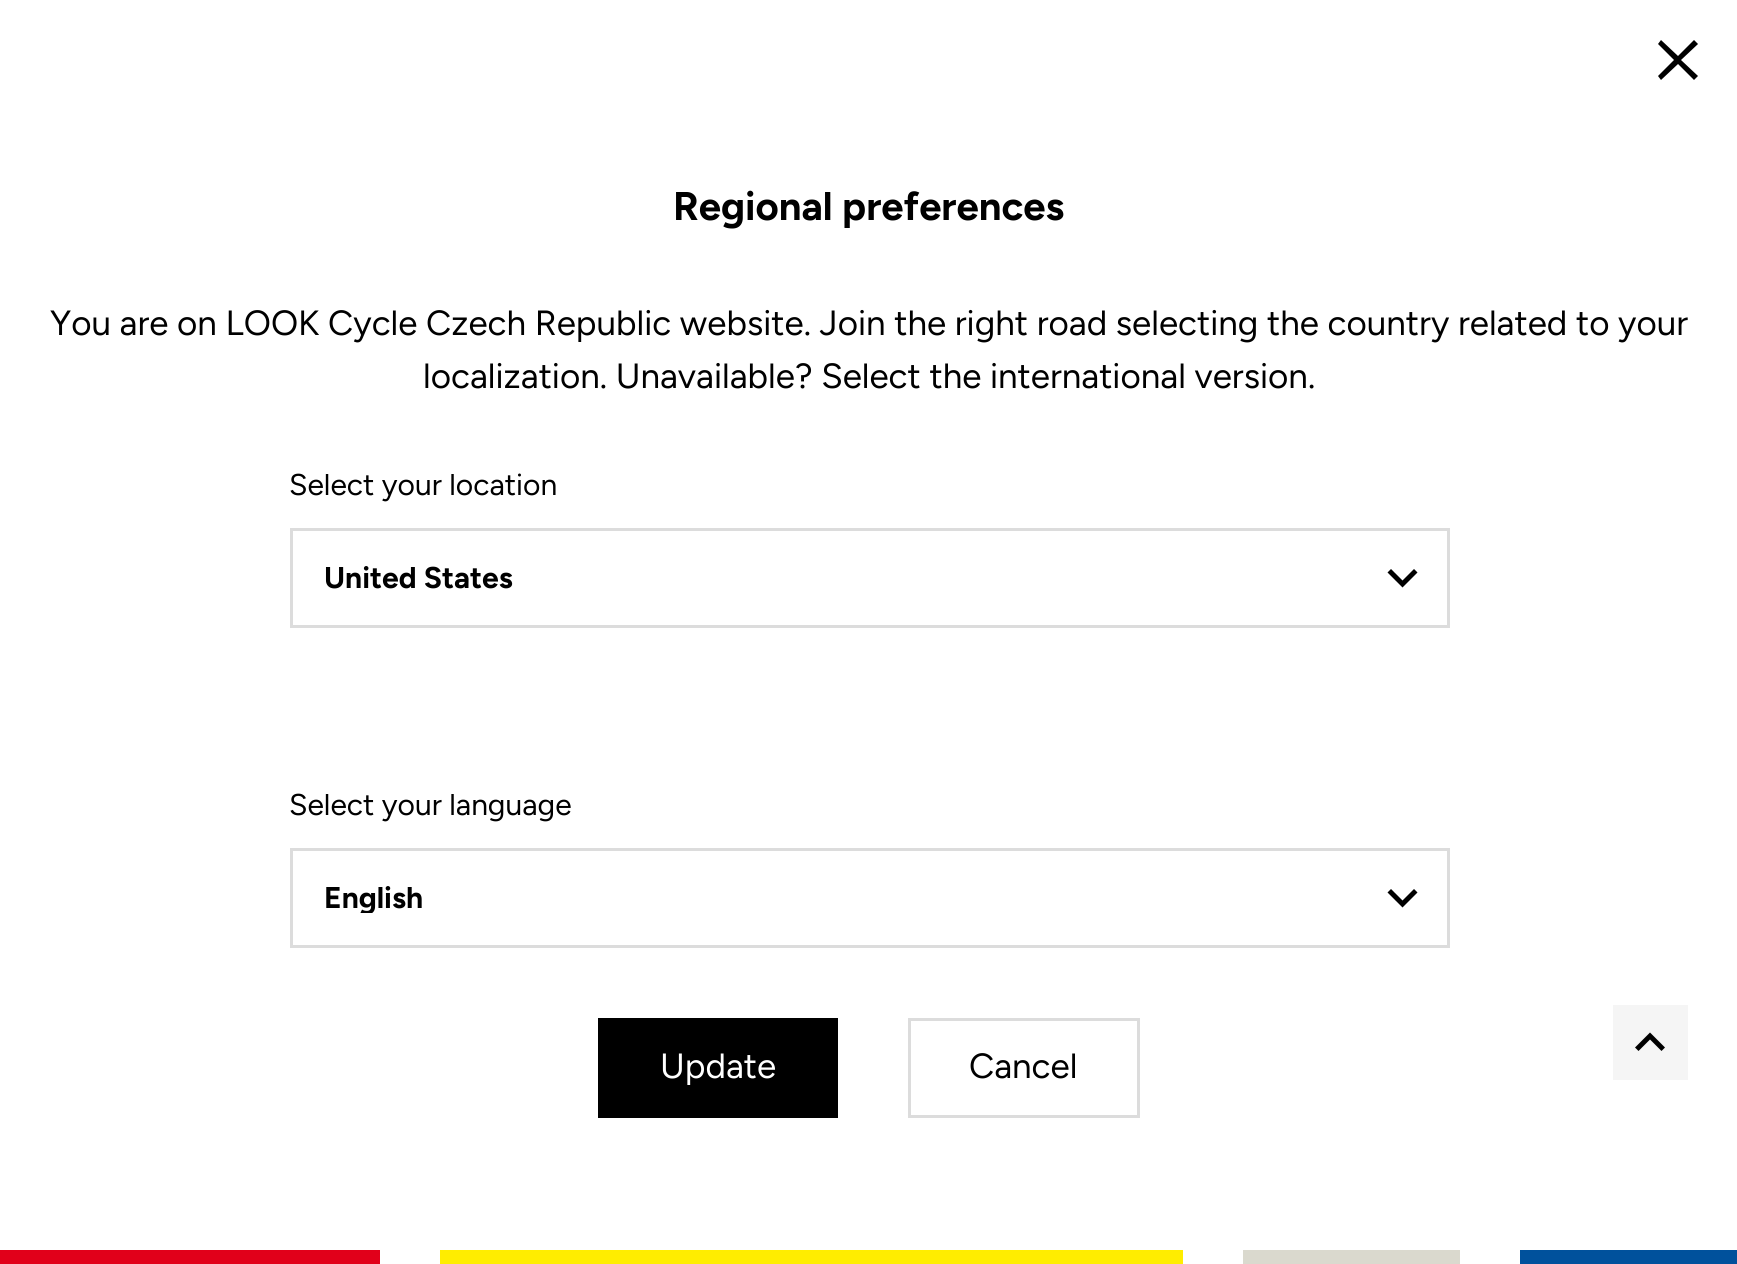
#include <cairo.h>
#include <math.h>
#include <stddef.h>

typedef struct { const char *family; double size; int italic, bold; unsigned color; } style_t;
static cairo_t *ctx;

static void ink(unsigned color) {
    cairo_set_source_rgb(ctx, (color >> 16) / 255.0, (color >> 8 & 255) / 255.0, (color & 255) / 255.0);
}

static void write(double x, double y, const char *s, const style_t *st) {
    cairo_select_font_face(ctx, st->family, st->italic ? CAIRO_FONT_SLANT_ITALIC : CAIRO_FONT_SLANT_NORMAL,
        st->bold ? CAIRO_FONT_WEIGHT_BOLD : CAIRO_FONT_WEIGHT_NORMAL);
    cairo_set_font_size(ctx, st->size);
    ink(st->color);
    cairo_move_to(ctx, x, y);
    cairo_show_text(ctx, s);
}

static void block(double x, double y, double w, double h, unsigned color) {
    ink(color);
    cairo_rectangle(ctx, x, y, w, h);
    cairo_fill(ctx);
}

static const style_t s1 = {"Figtree", 40, 0, 1, 0x000000};
static const style_t s2 = {"Figtree", 35, 0, 0, 0x000000};
static const style_t s3 = {"Figtree", 30, 0, 0, 0x000000};
static const style_t s4 = {"Figtree", 30, 0, 1, 0x000000};
static const style_t s5 = {"Figtree", 35, 0, 0, 0xffffff};

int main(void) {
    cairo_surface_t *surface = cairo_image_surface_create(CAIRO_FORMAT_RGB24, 1737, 1264);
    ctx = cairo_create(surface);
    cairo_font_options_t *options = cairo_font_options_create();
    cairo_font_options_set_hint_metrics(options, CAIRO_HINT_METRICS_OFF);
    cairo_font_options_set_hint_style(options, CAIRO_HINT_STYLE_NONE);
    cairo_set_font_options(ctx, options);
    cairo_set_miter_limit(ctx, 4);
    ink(0xffffff);
    cairo_paint(ctx);
    ink(0x000000);
    cairo_new_path(ctx);
    cairo_move_to(ctx, 1678, 56);
    cairo_line_to(ctx, 1694, 40);
    cairo_line_to(ctx, 1698, 44);
    cairo_line_to(ctx, 1681, 60);
    cairo_line_to(ctx, 1698, 76);
    cairo_line_to(ctx, 1694, 80);
    cairo_line_to(ctx, 1678, 64);
    cairo_line_to(ctx, 1661, 80);
    cairo_line_to(ctx, 1658, 76);
    cairo_line_to(ctx, 1674, 60);
    cairo_line_to(ctx, 1658, 44);
    cairo_line_to(ctx, 1661, 40);
    cairo_close_path(ctx);
    cairo_fill(ctx);
    write(673, 220, "Regional preferences", &s1);
    write(50, 335, "You are on LOOK Cycle Czech Republic website. Join the right road selecting the country related to your", &s2);
    write(423, 388, "localization. Unavailable? Select the international version.", &s2);
    write(289, 495, "Select your location", &s3);
    cairo_new_path(ctx);
    cairo_move_to(ctx, 1414, 569);
    cairo_line_to(ctx, 1402.5, 580.5);
    cairo_line_to(ctx, 1391, 569);
    cairo_line_to(ctx, 1387.5, 572.5);
    cairo_line_to(ctx, 1402.5, 587.5);
    cairo_line_to(ctx, 1417.5, 572.5);
    cairo_close_path(ctx);
    cairo_fill(ctx);
    cairo_rectangle(ctx, 291.5, 529.5, 1157, 97);
    ink(0xdcdcdc);
    cairo_set_line_width(ctx, 3);
    cairo_stroke(ctx);
    write(324, 588, "United States", &s4);
    write(289, 815, "Select your language", &s3);
    cairo_new_path(ctx);
    cairo_move_to(ctx, 1414, 889);
    cairo_line_to(ctx, 1402.5, 900.5);
    cairo_line_to(ctx, 1391, 889);
    cairo_line_to(ctx, 1387.5, 892.5);
    cairo_line_to(ctx, 1402.5, 907.5);
    cairo_line_to(ctx, 1417.5, 892.5);
    cairo_close_path(ctx);
    cairo_fill(ctx);
    cairo_rectangle(ctx, 291.5, 849.5, 1157, 97);
    ink(0xdcdcdc);
    cairo_stroke(ctx);
    cairo_save(ctx);
    cairo_rectangle(ctx, 325, 883, 1043, 30);
    cairo_clip(ctx);
    write(324, 908, "English", &s4);
    cairo_restore(ctx);
    block(598, 1018, 240, 100, 0x000000);
    write(660, 1078, "Update", &s5);
    cairo_rectangle(ctx, 909.5, 1019.5, 229, 97);
    ink(0xdcdcdc);
    cairo_stroke(ctx);
    write(969, 1078, "Cancel", &s2);
    block(0, 1250, 380, 14, 0xe1001a);
    block(440, 1250, 743, 14, 0xffed00);
    block(1243, 1250, 217, 14, 0xdad9ce);
    block(1520, 1250, 217, 14, 0x00519c);
    block(1613, 1005, 75, 75, 0xf5f5f5);
    ink(0x000000);
    cairo_new_path(ctx);
    cairo_move_to(ctx, 1638.5, 1051);
    cairo_line_to(ctx, 1650, 1039.5);
    cairo_line_to(ctx, 1661.5, 1051);
    cairo_line_to(ctx, 1665, 1047.5);
    cairo_line_to(ctx, 1650, 1032.5);
    cairo_line_to(ctx, 1635, 1047.5);
    cairo_close_path(ctx);
    cairo_fill(ctx);
    cairo_surface_write_to_png(surface, "screenshot.png");
    cairo_font_options_destroy(options);
    cairo_destroy(ctx);
    cairo_surface_destroy(surface);
    return 0;
}
